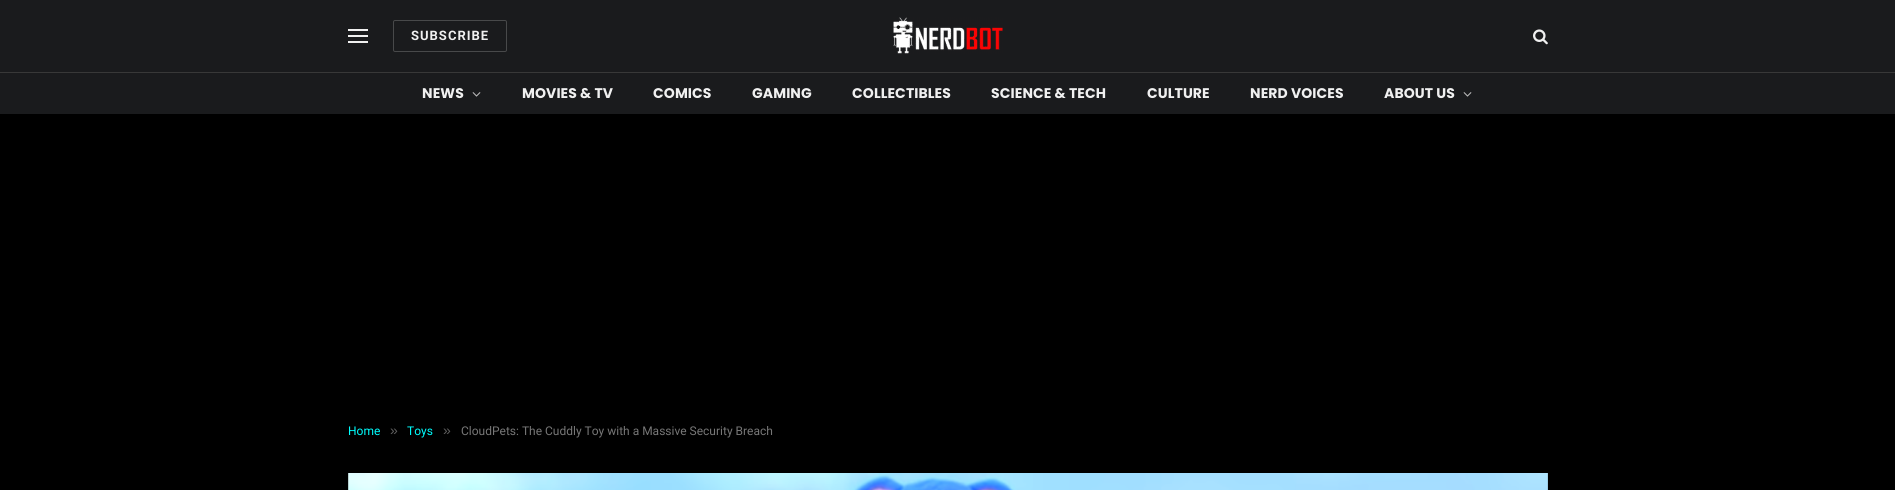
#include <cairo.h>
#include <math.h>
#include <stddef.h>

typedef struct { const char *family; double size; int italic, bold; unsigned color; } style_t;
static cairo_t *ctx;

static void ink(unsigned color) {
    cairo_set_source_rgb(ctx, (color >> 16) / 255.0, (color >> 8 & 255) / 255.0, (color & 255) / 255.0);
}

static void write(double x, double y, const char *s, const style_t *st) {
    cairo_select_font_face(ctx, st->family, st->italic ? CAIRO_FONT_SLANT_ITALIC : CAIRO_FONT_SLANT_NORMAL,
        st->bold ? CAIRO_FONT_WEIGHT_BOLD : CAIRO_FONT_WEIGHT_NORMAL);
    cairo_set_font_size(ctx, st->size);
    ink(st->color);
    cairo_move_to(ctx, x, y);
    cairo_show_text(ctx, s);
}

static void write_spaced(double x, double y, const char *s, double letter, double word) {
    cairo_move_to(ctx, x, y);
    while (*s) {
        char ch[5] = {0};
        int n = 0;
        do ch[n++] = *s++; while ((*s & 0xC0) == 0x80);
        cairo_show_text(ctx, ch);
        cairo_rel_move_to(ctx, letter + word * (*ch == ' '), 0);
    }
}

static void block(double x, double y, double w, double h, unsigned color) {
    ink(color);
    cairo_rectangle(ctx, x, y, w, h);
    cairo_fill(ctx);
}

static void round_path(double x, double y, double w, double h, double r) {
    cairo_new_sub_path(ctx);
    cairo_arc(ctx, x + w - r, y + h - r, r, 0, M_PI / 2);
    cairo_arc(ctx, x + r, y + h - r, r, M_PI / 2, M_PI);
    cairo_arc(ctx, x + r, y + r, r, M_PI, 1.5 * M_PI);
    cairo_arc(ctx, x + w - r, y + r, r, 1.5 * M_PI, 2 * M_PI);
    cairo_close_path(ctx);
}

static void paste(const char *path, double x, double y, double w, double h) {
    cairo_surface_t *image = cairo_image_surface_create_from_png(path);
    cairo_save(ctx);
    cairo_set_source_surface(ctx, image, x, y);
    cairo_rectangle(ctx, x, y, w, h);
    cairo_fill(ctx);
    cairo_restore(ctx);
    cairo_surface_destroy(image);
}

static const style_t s1 = {"Roboto", 12, 0, 0, 0x00ffff};
static const style_t s2 = {"Liberation Sans", 14, 0, 0, 0x5f5f5f};
static const style_t s3 = {"Roboto", 12, 0, 0, 0x777777};

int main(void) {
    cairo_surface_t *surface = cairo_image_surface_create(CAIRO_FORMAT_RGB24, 1895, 490);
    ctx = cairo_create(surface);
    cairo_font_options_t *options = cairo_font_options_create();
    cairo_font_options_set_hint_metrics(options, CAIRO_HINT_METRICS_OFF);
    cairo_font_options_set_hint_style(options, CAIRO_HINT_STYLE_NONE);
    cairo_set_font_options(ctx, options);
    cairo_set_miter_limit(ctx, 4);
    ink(0x000000);
    cairo_paint(ctx);
    block(0, 0, 1895, 72, 0x1a1b1d);
    block(348, 41, 20, 2, 0xf0f0f0);
    block(348, 29, 20, 2, 0xf0f0f0);
    block(348, 35, 20, 2, 0xf0f0f0);
    round_path(393.5, 20.5, 113, 31, 1.5);
    ink(0x48494a);
    cairo_set_line_width(ctx, 1);
    cairo_stroke(ctx);
    cairo_select_font_face(ctx, "Roboto", CAIRO_FONT_SLANT_NORMAL, CAIRO_FONT_WEIGHT_BOLD);
    cairo_set_font_size(ctx, 13);
    ink(0xf0f0f0);
    write_spaced(411, 40, "SUBSCRIBE", 1, 0);
    paste("pic1.png", 893, 17, 110, 37);
    paste("pic2.png", 1533, 29, 15, 16);
    block(0, 73, 1895, 41, 0x1a1b1d);
    block(0, 72, 1895, 1, 0x383838);
    cairo_select_font_face(ctx, "Poppins", CAIRO_FONT_SLANT_NORMAL, CAIRO_FONT_WEIGHT_BOLD);
    cairo_set_font_size(ctx, 14);
    ink(0xf0f0f0);
    write_spaced(422, 98, "NEWS", 0.1, 0);
    paste("pic3.png", 472, 92, 9, 5);
    write_spaced(522, 98, "MOVIES & TV", 0.1, 0);
    write_spaced(653, 98, "COMICS", 0.1, 0);
    write_spaced(752, 98, "GAMING", 0.1, 0);
    write_spaced(852, 98, "COLLECTIBLES", 0.1, 0);
    write_spaced(991, 98, "SCIENCE & TECH", 0.1, 0);
    write_spaced(1147, 98, "CULTURE", 0.1, 0);
    write_spaced(1250, 98, "NERD VOICES", 0.1, 0);
    write_spaced(1384, 98, "ABOUT US", 0.1, 0);
    paste("pic3.png", 1463, 92, 9, 5);
    write(348, 435, "Home", &s1);
    write(390, 435, "»", &s2);
    write(407, 435, "Toys", &s1);
    write(443, 435, "»", &s2);
    write(461, 435, "CloudPets: The Cuddly Toy with a Massive Security Breach", &s3);
    paste("pic4.png", 348, 473, 1200, 17);
    cairo_surface_write_to_png(surface, "screenshot.png");
    cairo_font_options_destroy(options);
    cairo_destroy(ctx);
    cairo_surface_destroy(surface);
    return 0;
}
